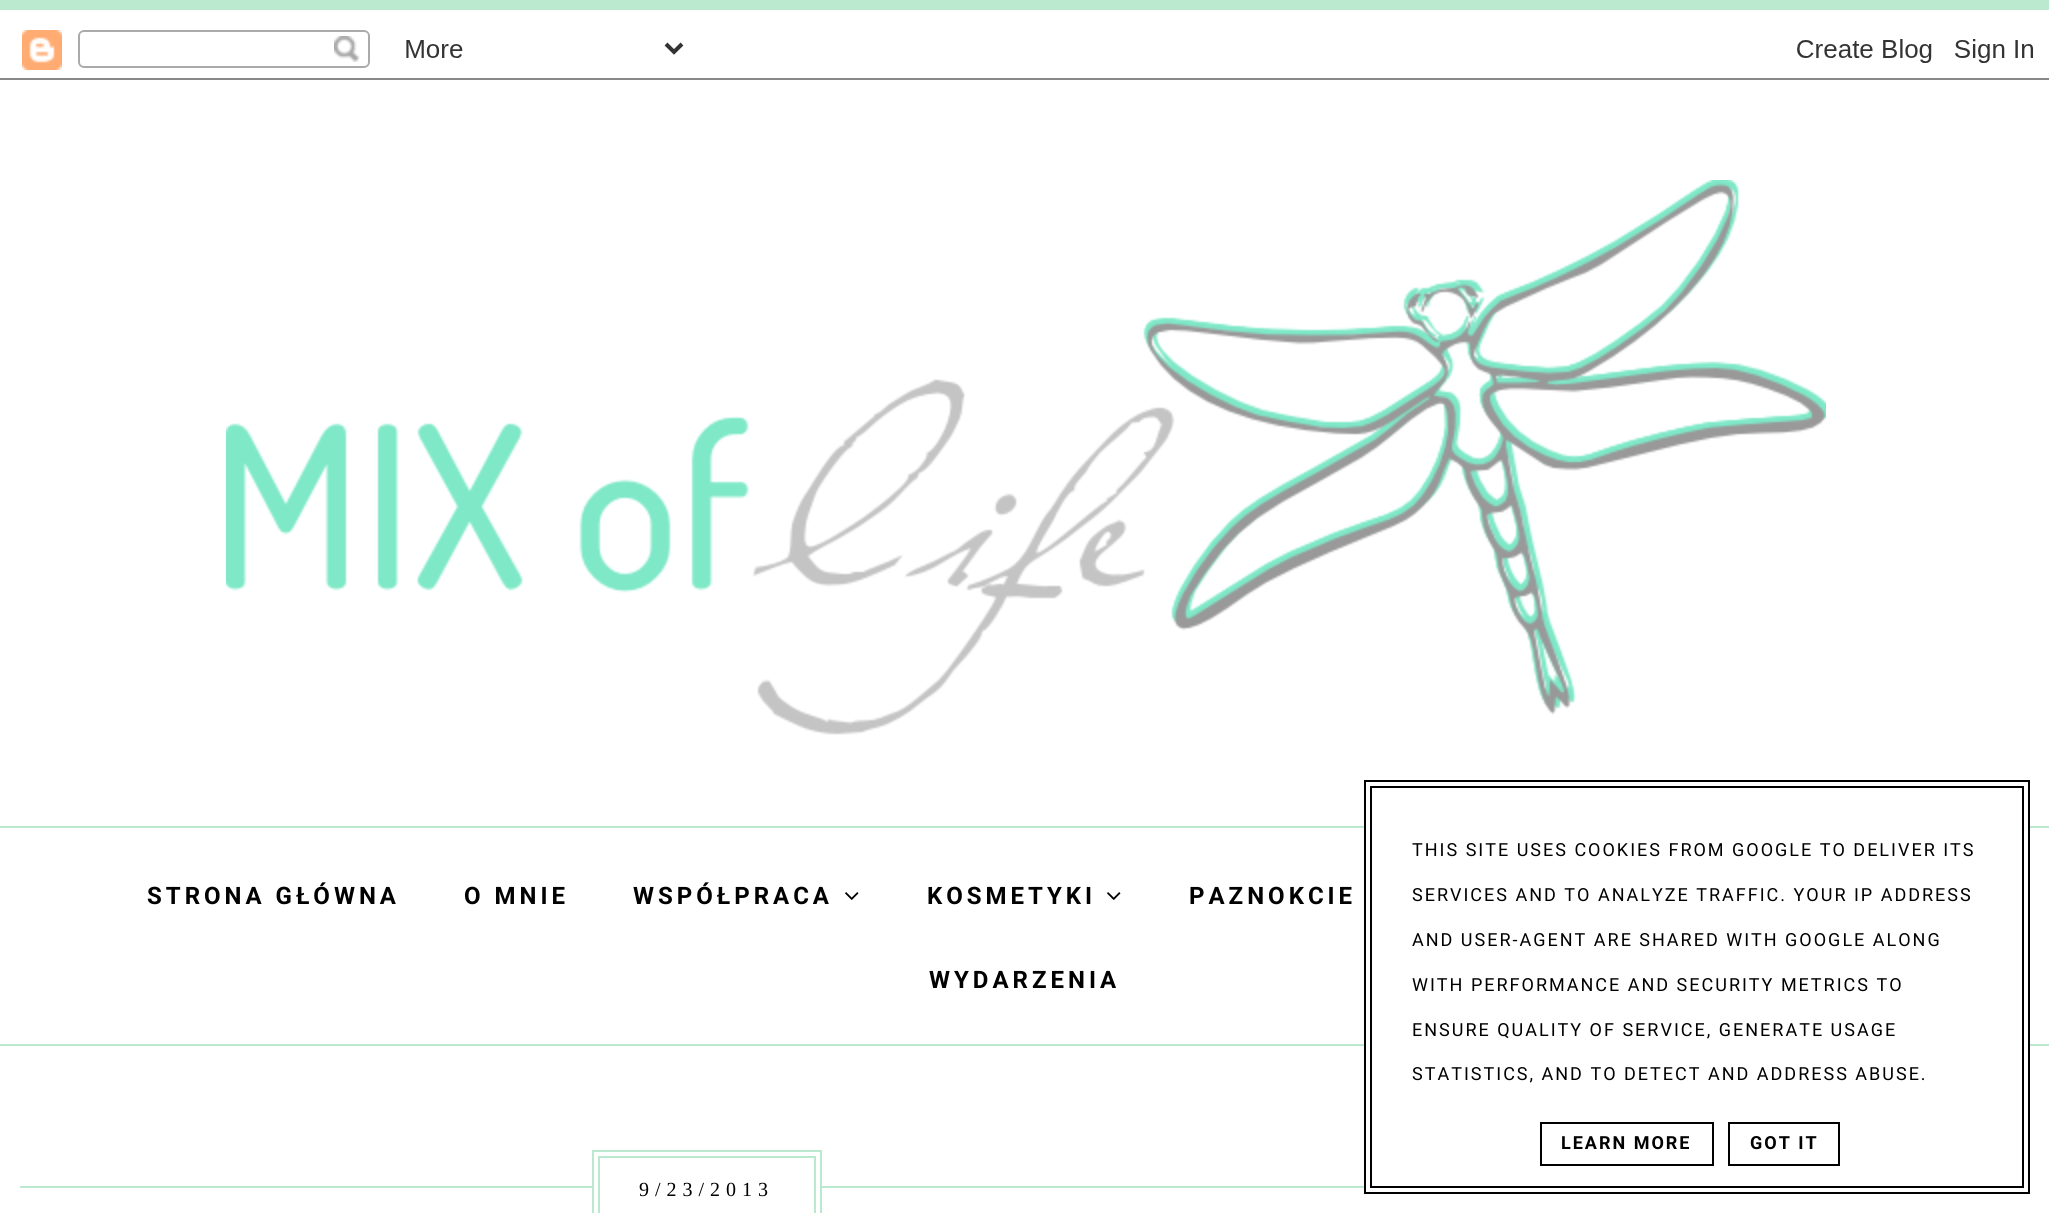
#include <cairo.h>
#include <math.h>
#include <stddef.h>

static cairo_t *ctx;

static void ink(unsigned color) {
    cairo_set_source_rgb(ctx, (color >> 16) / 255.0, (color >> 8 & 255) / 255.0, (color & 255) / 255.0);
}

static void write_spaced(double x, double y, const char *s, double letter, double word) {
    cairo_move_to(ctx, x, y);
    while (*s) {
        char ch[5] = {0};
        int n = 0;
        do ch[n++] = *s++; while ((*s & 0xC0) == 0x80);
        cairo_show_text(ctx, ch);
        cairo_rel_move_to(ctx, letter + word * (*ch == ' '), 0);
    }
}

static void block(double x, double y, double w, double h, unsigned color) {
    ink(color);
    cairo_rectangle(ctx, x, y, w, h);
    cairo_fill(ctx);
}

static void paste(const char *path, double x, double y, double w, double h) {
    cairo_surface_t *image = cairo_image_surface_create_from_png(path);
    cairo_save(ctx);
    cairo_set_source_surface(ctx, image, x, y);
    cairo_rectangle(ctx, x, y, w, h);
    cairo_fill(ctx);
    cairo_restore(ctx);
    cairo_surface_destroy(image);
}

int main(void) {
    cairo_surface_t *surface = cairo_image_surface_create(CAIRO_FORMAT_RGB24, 2049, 1213);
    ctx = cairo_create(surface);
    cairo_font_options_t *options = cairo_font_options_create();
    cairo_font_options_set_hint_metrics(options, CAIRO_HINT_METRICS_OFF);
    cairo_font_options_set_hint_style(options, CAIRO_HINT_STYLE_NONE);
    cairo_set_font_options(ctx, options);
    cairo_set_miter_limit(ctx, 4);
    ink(0xffffff);
    cairo_paint(ctx);
    block(0, 0, 2049, 10, 0xbbe9cf);
    paste("pic1.png", 0, 30, 2049, 50);
    paste("pic2.png", 226, 180, 1600, 555);
    block(0, 826, 2049, 2, 0xbbe9cf);
    block(0, 1044, 2049, 2, 0xbbe9cf);
    cairo_select_font_face(ctx, "Roboto", CAIRO_FONT_SLANT_NORMAL, CAIRO_FONT_WEIGHT_BOLD);
    cairo_set_font_size(ctx, 24);
    ink(0x000000);
    write_spaced(147, 904, "STRONA GŁÓWNA", 4, 0);
    write_spaced(464, 904, "O MNIE", 4, 0);
    write_spaced(633, 904, "WSPÓŁPRACA", 4, 0);
    paste("pic3.png", 845, 892, 14, 8);
    write_spaced(927, 904, "KOSMETYKI", 4, 0);
    paste("pic3.png", 1107, 892, 14, 8);
    write_spaced(1189, 904, "PAZNOKCIE", 4, 0);
    write_spaced(929, 988, "WYDARZENIA", 4, 0);
    block(1366, 826, 662, 220, 0xffffff);
    cairo_rectangle(ctx, 1365, 781, 664, 412);
    ink(0x000000);
    cairo_stroke(ctx);
    cairo_rectangle(ctx, 1371, 787, 652, 400);
    cairo_stroke(ctx);
    cairo_select_font_face(ctx, "Roboto", CAIRO_FONT_SLANT_NORMAL, CAIRO_FONT_WEIGHT_NORMAL);
    cairo_set_font_size(ctx, 18);
    write_spaced(1412, 856, "THIS SITE USES COOKIES FROM GOOGLE TO DELIVER ITS", 2, 0);
    write_spaced(1412, 901, "SERVICES AND TO ANALYZE TRAFFIC. YOUR IP ADDRESS", 2, 0);
    write_spaced(1412, 946, "AND USER-AGENT ARE SHARED WITH GOOGLE ALONG", 2, 0);
    write_spaced(1412, 991, "WITH PERFORMANCE AND SECURITY METRICS TO", 2, 0);
    write_spaced(1412, 1036, "ENSURE QUALITY OF SERVICE, GENERATE USAGE", 2, 0);
    write_spaced(1412, 1080, "STATISTICS, AND TO DETECT AND ADDRESS ABUSE.", 2, 0);
    cairo_rectangle(ctx, 1541, 1123, 172, 42);
    cairo_stroke(ctx);
    cairo_select_font_face(ctx, "Roboto", CAIRO_FONT_SLANT_NORMAL, CAIRO_FONT_WEIGHT_BOLD);
    write_spaced(1561, 1149, "LEARN MORE", 2, 0);
    cairo_rectangle(ctx, 1729, 1123, 110, 42);
    cairo_stroke(ctx);
    write_spaced(1750, 1149, "GOT IT", 2, 0);
    block(20, 1186, 1344, 2, 0xbbe9cf);
    block(594, 1186, 226, 2, 0xffffff);
    cairo_rectangle(ctx, 593, 1151, 228, 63);
    ink(0xbbe9cf);
    cairo_stroke(ctx);
    cairo_rectangle(ctx, 599, 1157, 216, 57);
    cairo_stroke(ctx);
    cairo_select_font_face(ctx, "Liberation Serif", CAIRO_FONT_SLANT_NORMAL, CAIRO_FONT_WEIGHT_NORMAL);
    cairo_set_font_size(ctx, 20);
    ink(0x000000);
    write_spaced(639, 1196, "9/23/2013", 6, 0);
    cairo_surface_write_to_png(surface, "screenshot.png");
    cairo_font_options_destroy(options);
    cairo_destroy(ctx);
    cairo_surface_destroy(surface);
    return 0;
}
